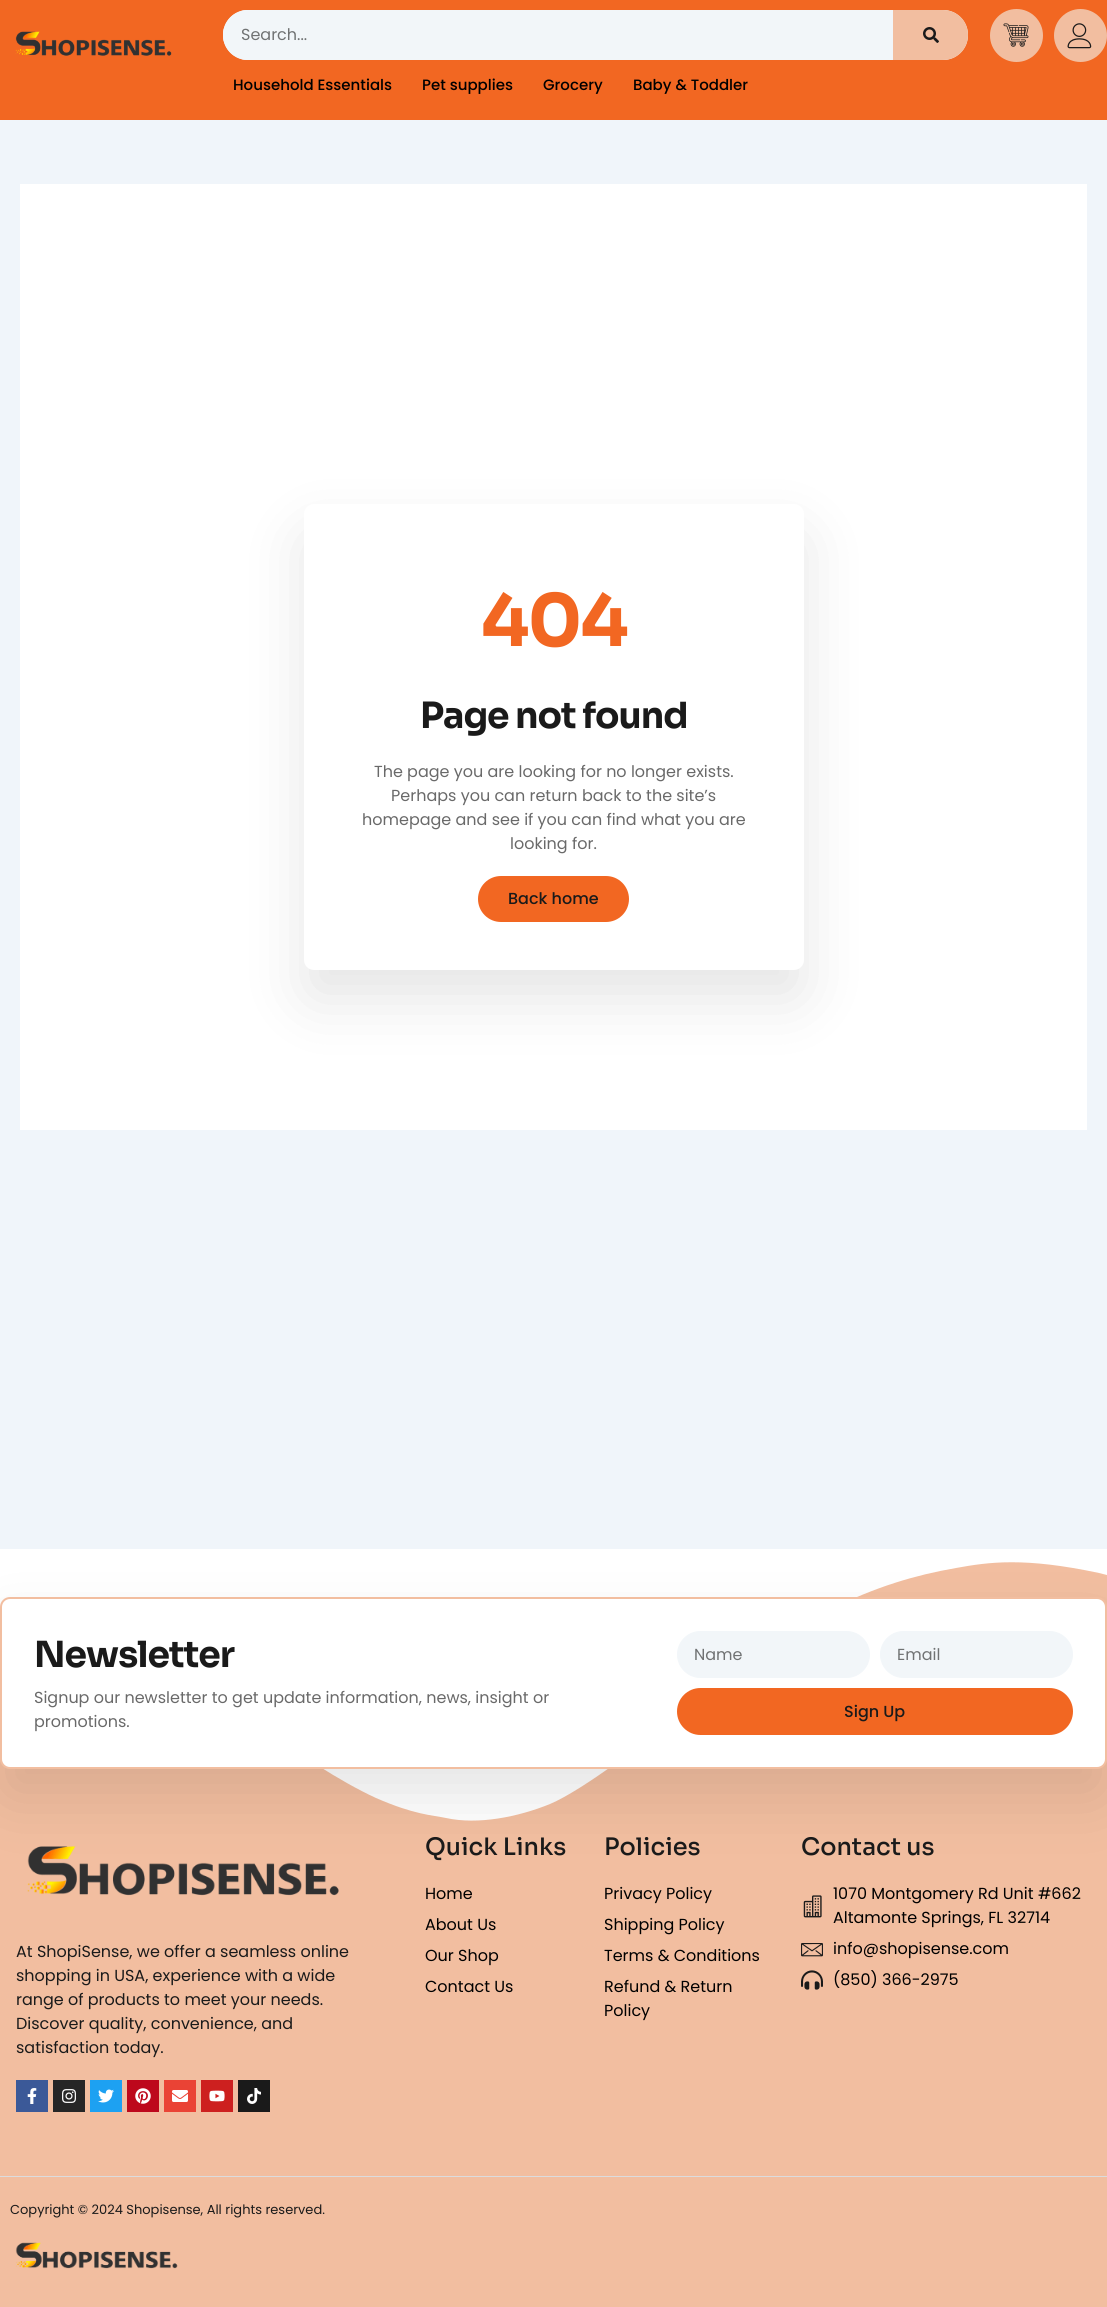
#include <cairo.h>
#include <math.h>
#include <stddef.h>

typedef struct { const char *family; double size; int italic, bold; unsigned color; } style_t;
static cairo_t *ctx;

static void ink(unsigned color) {
    cairo_set_source_rgb(ctx, (color >> 16) / 255.0, (color >> 8 & 255) / 255.0, (color & 255) / 255.0);
}

static void write(double x, double y, const char *s, const style_t *st) {
    cairo_select_font_face(ctx, st->family, st->italic ? CAIRO_FONT_SLANT_ITALIC : CAIRO_FONT_SLANT_NORMAL,
        st->bold ? CAIRO_FONT_WEIGHT_BOLD : CAIRO_FONT_WEIGHT_NORMAL);
    cairo_set_font_size(ctx, st->size);
    ink(st->color);
    cairo_move_to(ctx, x, y);
    cairo_show_text(ctx, s);
}

static void write_spaced(double x, double y, const char *s, double letter, double word) {
    cairo_move_to(ctx, x, y);
    while (*s) {
        char ch[5] = {0};
        int n = 0;
        do ch[n++] = *s++; while ((*s & 0xC0) == 0x80);
        cairo_show_text(ctx, ch);
        cairo_rel_move_to(ctx, letter + word * (*ch == ' '), 0);
    }
}

static void block(double x, double y, double w, double h, unsigned color) {
    ink(color);
    cairo_rectangle(ctx, x, y, w, h);
    cairo_fill(ctx);
}

static void round_path(double x, double y, double w, double h, double r) {
    cairo_new_sub_path(ctx);
    cairo_arc(ctx, x + w - r, y + h - r, r, 0, M_PI / 2);
    cairo_arc(ctx, x + r, y + h - r, r, M_PI / 2, M_PI);
    cairo_arc(ctx, x + r, y + r, r, M_PI, 1.5 * M_PI);
    cairo_arc(ctx, x + w - r, y + r, r, 1.5 * M_PI, 2 * M_PI);
    cairo_close_path(ctx);
}

static void blur_box(double x, double y, double w, double h, double r, double blur, double alpha) {
    cairo_push_group_with_content(ctx, CAIRO_CONTENT_ALPHA);
    cairo_set_operator(ctx, CAIRO_OPERATOR_SOURCE);
    for (int i = 15; i >= -15 && fmin(w, h) + blur * i / 3 > 0; i -= 2) {
        double e = blur * i / 6;
        cairo_set_source_rgba(ctx, 0, 0, 0, alpha * erfc((i - 1) / 8.5) / 2);
        round_path(x - e, y - e, w + 2 * e, h + 2 * e, fmax(0, fmin(r + e + blur * .6, fmin(w, h) / 2 + e)));
        cairo_fill(ctx);
    }
    cairo_pattern_t *soft = cairo_pop_group(ctx);
    cairo_mask(ctx, soft);
    cairo_pattern_destroy(soft);
}

static void paste(const char *path, double x, double y, double w, double h) {
    cairo_surface_t *image = cairo_image_surface_create_from_png(path);
    cairo_save(ctx);
    cairo_set_source_surface(ctx, image, x, y);
    cairo_rectangle(ctx, x, y, w, h);
    cairo_fill(ctx);
    cairo_restore(ctx);
    cairo_surface_destroy(image);
}

static const style_t s1 = {"Poppins", 16, 0, 0, 0x707273};
static const style_t s2 = {"Poppins Medium", 15, 0, 0, 0x000000};
static const style_t s3 = {"Poppins", 16, 0, 0, 0x696969};
static const style_t s4 = {"Poppins Medium", 16, 0, 0, 0x1a1a1a};
static const style_t s5 = {"Sora Medium", 24, 0, 0, 0x1a1a1a};
static const style_t s6 = {"Poppins", 16, 0, 0, 0x000000};
static const style_t s7 = {"Poppins", 16, 0, 0, 0x1a1a1a};
static const style_t s8 = {"Poppins", 13, 0, 0, 0x1a1a1a};

int main(void) {
    cairo_surface_t *surface = cairo_image_surface_create(CAIRO_FORMAT_RGB24, 1107, 2307);
    ctx = cairo_create(surface);
    cairo_font_options_t *options = cairo_font_options_create();
    cairo_font_options_set_hint_metrics(options, CAIRO_HINT_METRICS_OFF);
    cairo_font_options_set_hint_style(options, CAIRO_HINT_STYLE_NONE);
    cairo_set_font_options(ctx, options);
    cairo_set_miter_limit(ctx, 4);
    ink(0xf0f5fa);
    cairo_paint(ctx);
    block(0, 0, 1107, 120, 0xf26722);
    paste("pic1.png", 15, 31, 157, 25);
    ink(0xf2f6f9);
    round_path(223, 10, 745, 50, 25);
    cairo_fill(ctx);
    cairo_new_path(ctx);
    cairo_move_to(ctx, 248, 10);
    cairo_line_to(ctx, 883, 10);
    cairo_curve_to(ctx, 888.5, 10, 893, 14.5, 893, 20);
    cairo_line_to(ctx, 893, 50);
    cairo_curve_to(ctx, 893, 55.5, 888.5, 60, 883, 60);
    cairo_line_to(ctx, 248, 60);
    cairo_curve_to(ctx, 234, 60, 223, 49, 223, 35);
    cairo_curve_to(ctx, 223, 21, 234, 10, 248, 10);
    cairo_close_path(ctx);
    cairo_fill(ctx);
    cairo_set_fill_rule(ctx, CAIRO_FILL_RULE_EVEN_ODD);
    cairo_new_path(ctx);
    cairo_move_to(ctx, 248, 10);
    cairo_line_to(ctx, 241, 11);
    cairo_line_to(ctx, 883, 11);
    cairo_curve_to(ctx, 888, 11, 892, 15, 892, 20);
    cairo_line_to(ctx, 892, 50);
    cairo_curve_to(ctx, 892, 55, 888, 59, 883, 59);
    cairo_line_to(ctx, 241, 59);
    cairo_line_to(ctx, 248, 60);
    cairo_line_to(ctx, 883, 60);
    cairo_curve_to(ctx, 889, 60, 893, 56, 893, 50);
    cairo_line_to(ctx, 893, 20);
    cairo_curve_to(ctx, 893, 14, 889, 10, 883, 10);
    cairo_close_path(ctx);
    cairo_move_to(ctx, 224, 42);
    cairo_curve_to(ctx, 223, 37, 223, 33, 224, 28);
    cairo_close_path(ctx);
    cairo_fill(ctx);
    write(241, 40, "Search...", &s1);
    ink(0xf2bea0);
    cairo_new_path(ctx);
    cairo_move_to(ctx, 893, 10);
    cairo_line_to(ctx, 943, 10);
    cairo_curve_to(ctx, 957, 10, 968, 21, 968, 35);
    cairo_curve_to(ctx, 968, 49, 957, 60, 943, 60);
    cairo_line_to(ctx, 893, 60);
    cairo_close_path(ctx);
    cairo_fill(ctx);
    paste("pic2.png", 923, 27, 16, 16);
    cairo_arc(ctx, 1016.5, 35.5, 26.5, 0, 2 * M_PI);
    cairo_fill(ctx);
    paste("pic3.png", 1003, 23, 26, 24);
    cairo_arc(ctx, 1080.5, 35.5, 26.5, 0, 2 * M_PI);
    cairo_fill(ctx);
    paste("pic4.png", 1067, 23, 25, 26);
    write(233, 90, "Household Essentials", &s2);
    write(422, 90, "Pet supplies", &s2);
    write(543, 90, "Grocery", &s2);
    write(633, 90, "Baby & Toddler", &s2);
    block(20, 184, 1067, 946, 0xffffff);
    ink(0x000000);
    blur_box(304, 534, 500, 466, 10, 30, 0.1);
    ink(0xffffff);
    round_path(304, 504, 500, 466, 10);
    cairo_fill(ctx);
    cairo_select_font_face(ctx, "Sora", CAIRO_FONT_SLANT_NORMAL, CAIRO_FONT_WEIGHT_BOLD);
    cairo_set_font_size(ctx, 72);
    ink(0xf26722);
    write_spaced(481, 646, "404", -2, 0);
    cairo_set_font_size(ctx, 36);
    ink(0x1a1a1a);
    write_spaced(420, 728, "Page not found", -1, 0);
    write(374, 777, "The page you are looking for no longer exists.", &s3);
    write(391, 801, "Perhaps you can return back to the site’s", &s3);
    write(362, 825, "homepage and see if you can find what you are", &s3);
    write(510, 849, "looking for.", &s3);
    ink(0xf26722);
    round_path(478, 876, 151, 46, 23);
    cairo_fill(ctx);
    write(508, 904, "Back home", &s4);
    block(0, 1562, 1107, 745, 0xf2bea0);
    ink(0xffffff);
    cairo_set_fill_rule(ctx, CAIRO_FILL_RULE_WINDING);
    cairo_new_path(ctx);
    cairo_move_to(ctx, 956, 1568);
    cairo_curve_to(ctx, 874, 1582, 795, 1617, 690, 1705);
    cairo_curve_to(ctx, 649, 1740, 583, 1790, 550, 1804);
    cairo_curve_to(ctx, 518, 1817, 478, 1825, 446, 1818);
    cairo_curve_to(ctx, 432, 1815, 415, 1815, 376, 1798);
    cairo_curve_to(ctx, 339, 1781, 296, 1752, 266, 1730);
    cairo_curve_to(ctx, 209, 1686, 135, 1670, 81, 1668);
    cairo_curve_to(ctx, -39, 1664, -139, 1753, -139, 1753);
    cairo_line_to(ctx, -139, 1549);
    cairo_line_to(ctx, 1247, 1549);
    cairo_line_to(ctx, 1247, 1644);
    cairo_curve_to(ctx, 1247, 1644, 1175, 1591, 1099, 1573);
    cairo_curve_to(ctx, 1024, 1557, 989, 1562, 956, 1568);
    cairo_close_path(ctx);
    cairo_fill(ctx);
    ink(0x000000);
    blur_box(0, 1627, 1107, 172, 10, 30, 0.1);
    ink(0xffffff);
    round_path(1, 1598, 1105, 170, 9);
    cairo_fill_preserve(ctx);
    ink(0xf2bea0);
    cairo_stroke(ctx);
    cairo_select_font_face(ctx, "Sora", CAIRO_FONT_SLANT_NORMAL, CAIRO_FONT_WEIGHT_BOLD);
    cairo_set_font_size(ctx, 36);
    ink(0x1a1a1a);
    write_spaced(34, 1667, "Newsletter", -1, 0);
    write(34, 1703, "Signup our newsletter to get update information, news, insight or", &s3);
    write(34, 1727, "promotions.", &s3);
    ink(0xf2f6f9);
    round_path(677.5, 1631.5, 192, 46, 23);
    cairo_fill_preserve(ctx);
    cairo_set_line_width(ctx, 1);
    cairo_stroke(ctx);
    write(694, 1660, "Name", &s1);
    ink(0xf2f6f9);
    round_path(880.5, 1631.5, 192, 46, 23);
    cairo_fill_preserve(ctx);
    cairo_stroke(ctx);
    write(897, 1660, "Email", &s1);
    ink(0xf26722);
    round_path(677, 1688, 396, 47, 23.5);
    cairo_fill(ctx);
    write(844, 1717, "Sign Up", &s4);
    block(0, 2176, 1107, 1, 0xdcdcde);
    write(425, 1855, "Quick Links", &s5);
    write(425, 1899, "Home", &s6);
    write(425, 1930, "About Us", &s6);
    write(425, 1961, "Our Shop", &s6);
    write(425, 1992, "Contact Us", &s6);
    write(604, 1855, "Policies", &s5);
    write(604, 1899, "Privacy Policy", &s6);
    write(604, 1930, "Shipping Policy", &s6);
    write(604, 1961, "Terms & Conditions", &s6);
    write(604, 1992, "Refund & Return", &s6);
    write(604, 2016, "Policy", &s6);
    write(801, 1855, "Contact us", &s5);
    paste("pic5.png", 803, 1895, 19, 23);
    write(833, 1899, "1070 Montgomery Rd Unit #662", &s6);
    write(833, 1923, "Altamonte Springs, FL 32714", &s6);
    paste("pic6.png", 801, 1943, 22, 14);
    write(833, 1954, "info@shopisense.com", &s6);
    paste("pic7.png", 801, 1970, 22, 20);
    write(833, 1985, "(850) 366-2975", &s6);
    paste("pic8.png", 27, 1846, 312, 50);
    write(16, 1957, "At ShopiSense, we offer a seamless online", &s7);
    write(16, 1981, "shopping in USA, experience with a wide", &s7);
    write(16, 2005, "range of products to meet your needs.", &s7);
    write(16, 2029, "Discover quality, convenience, and", &s7);
    write(16, 2053, "satisfaction today.", &s7);
    block(16, 2080, 32, 32, 0x3b5998);
    paste("pic9.png", 27, 2088, 10, 16);
    block(53, 2080, 32, 32, 0x262626);
    paste("pic10.png", 62, 2089, 14, 14);
    block(90, 2080, 32, 32, 0x1da1f2);
    paste("pic11.png", 98, 2089, 16, 14);
    block(127, 2080, 32, 32, 0xbd081c);
    paste("pic12.png", 135, 2088, 16, 16);
    block(164, 2080, 32, 32, 0xea4335);
    paste("pic13.png", 172, 2090, 16, 12);
    block(201, 2080, 32, 32, 0xcd201f);
    paste("pic14.png", 209, 2090, 16, 12);
    block(238, 2080, 32, 32, 0x1a1a1a);
    paste("pic15.png", 247, 2088, 14, 16);
    write(10, 2214, "Copyright © 2024 Shopisense, All rights reserved.", &s8);
    paste("pic16.png", 15, 2242, 163, 27);
    cairo_surface_write_to_png(surface, "screenshot.png");
    cairo_font_options_destroy(options);
    cairo_destroy(ctx);
    cairo_surface_destroy(surface);
    return 0;
}
